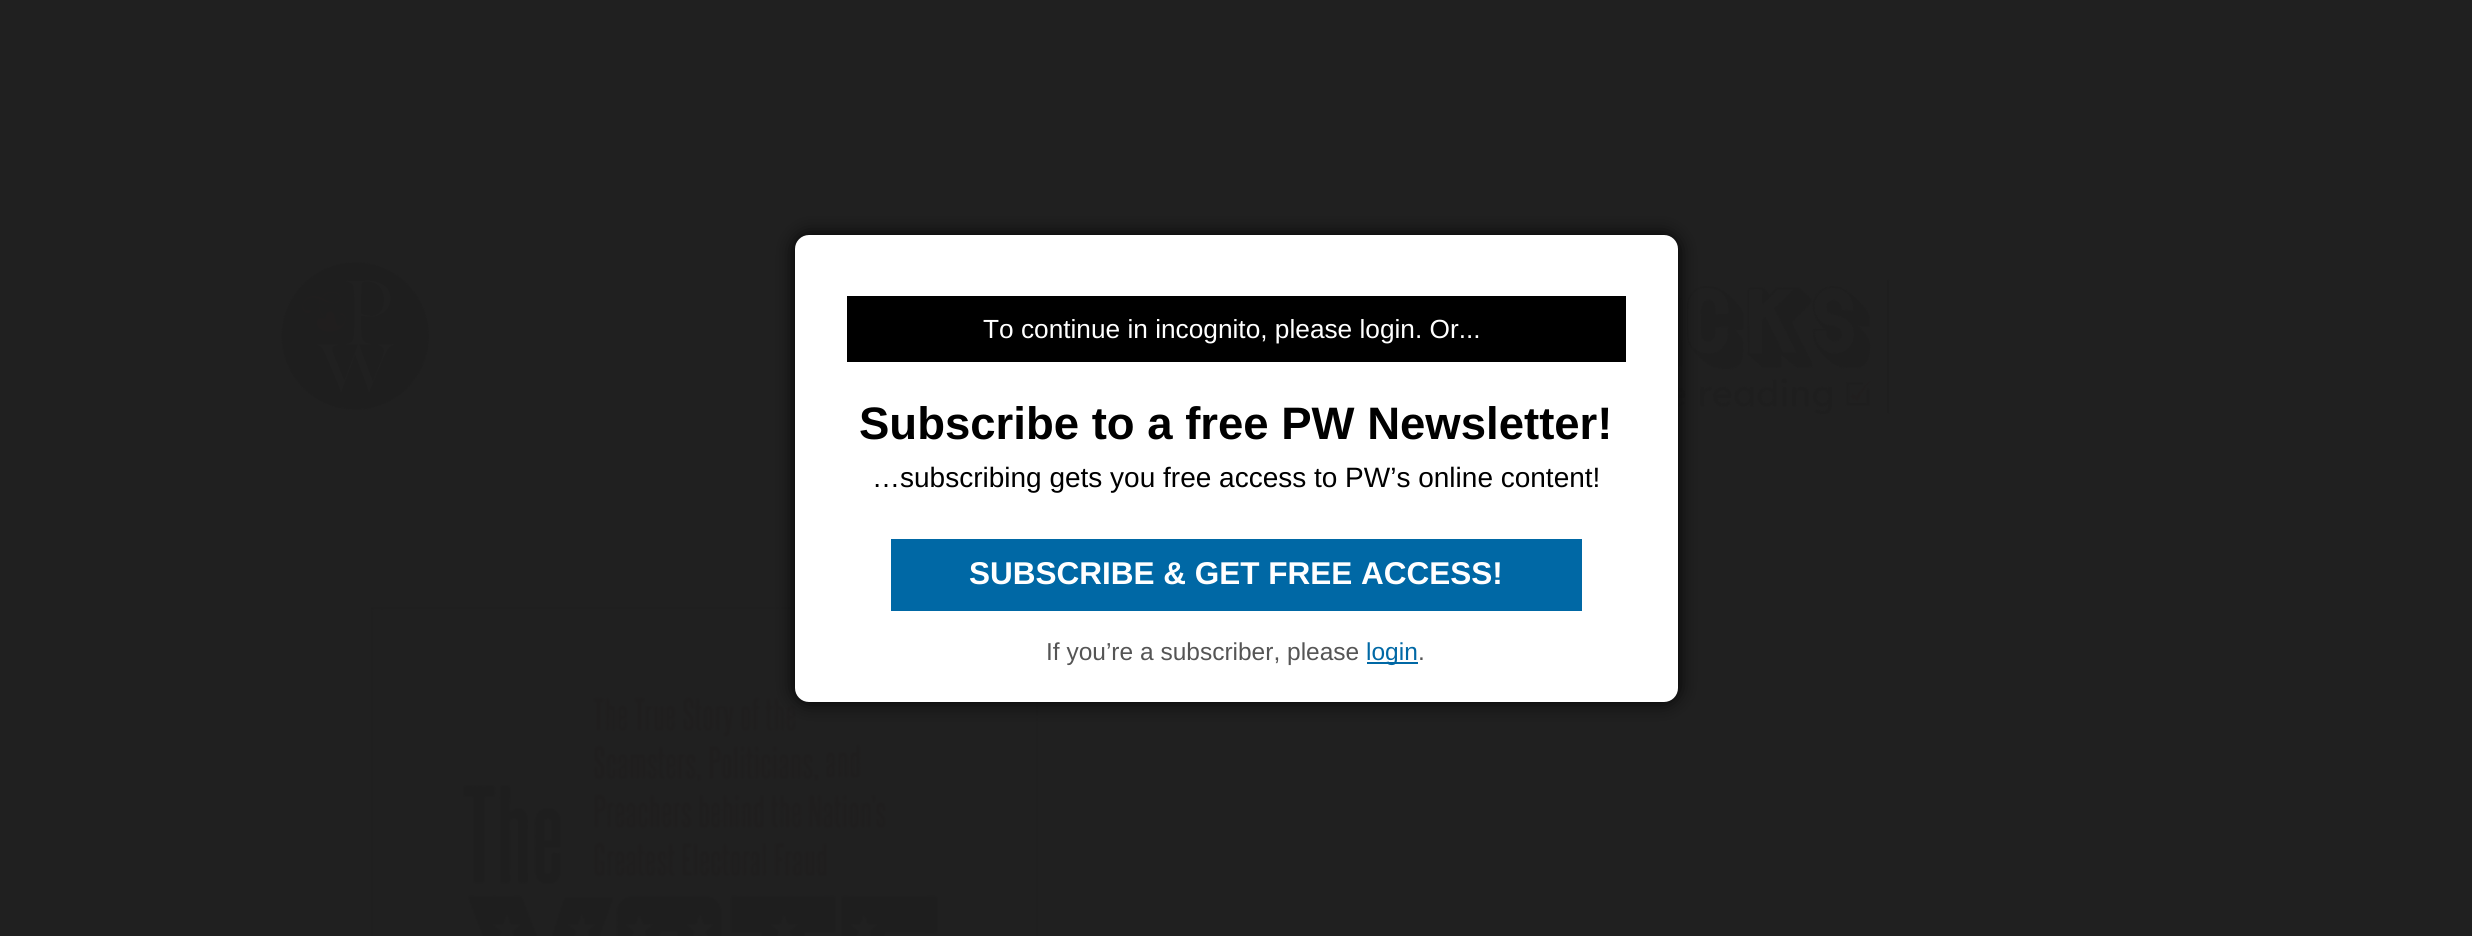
#include <cairo.h>
#include <math.h>
#include <stddef.h>

typedef struct { const char *family; double size; int italic, bold; unsigned color; } style_t;
static cairo_t *ctx;

static void ink(unsigned color) {
    cairo_set_source_rgb(ctx, (color >> 16) / 255.0, (color >> 8 & 255) / 255.0, (color & 255) / 255.0);
}

static void write(double x, double y, const char *s, const style_t *st) {
    cairo_select_font_face(ctx, st->family, st->italic ? CAIRO_FONT_SLANT_ITALIC : CAIRO_FONT_SLANT_NORMAL,
        st->bold ? CAIRO_FONT_WEIGHT_BOLD : CAIRO_FONT_WEIGHT_NORMAL);
    cairo_set_font_size(ctx, st->size);
    ink(st->color);
    cairo_move_to(ctx, x, y);
    cairo_show_text(ctx, s);
}

static void block(double x, double y, double w, double h, unsigned color) {
    ink(color);
    cairo_rectangle(ctx, x, y, w, h);
    cairo_fill(ctx);
}

static void round_path(double x, double y, double w, double h, double r) {
    cairo_new_sub_path(ctx);
    cairo_arc(ctx, x + w - r, y + h - r, r, 0, M_PI / 2);
    cairo_arc(ctx, x + r, y + h - r, r, M_PI / 2, M_PI);
    cairo_arc(ctx, x + r, y + r, r, M_PI, 1.5 * M_PI);
    cairo_arc(ctx, x + w - r, y + r, r, 1.5 * M_PI, 2 * M_PI);
    cairo_close_path(ctx);
}

static void blur_box(double x, double y, double w, double h, double r, double blur, double alpha) {
    cairo_push_group_with_content(ctx, CAIRO_CONTENT_ALPHA);
    cairo_set_operator(ctx, CAIRO_OPERATOR_SOURCE);
    for (int i = 15; i >= -15 && fmin(w, h) + blur * i / 3 > 0; i -= 2) {
        double e = blur * i / 6;
        cairo_set_source_rgba(ctx, 0, 0, 0, alpha * erfc((i - 1) / 8.5) / 2);
        round_path(x - e, y - e, w + 2 * e, h + 2 * e, fmax(0, fmin(r + e + blur * .6, fmin(w, h) / 2 + e)));
        cairo_fill(ctx);
    }
    cairo_pattern_t *soft = cairo_pop_group(ctx);
    cairo_mask(ctx, soft);
    cairo_pattern_destroy(soft);
}

static void paste(const char *path, double x, double y, double w, double h) {
    cairo_surface_t *image = cairo_image_surface_create_from_png(path);
    cairo_save(ctx);
    cairo_set_source_surface(ctx, image, x, y);
    cairo_rectangle(ctx, x, y, w, h);
    cairo_fill(ctx);
    cairo_restore(ctx);
    cairo_surface_destroy(image);
}

static const style_t s1 = {"Liberation Sans", 26.25, 0, 0, 0xffffff};
static const style_t s2 = {"Liberation Sans", 45.5, 0, 1, 0x000000};
static const style_t s3 = {"Liberation Sans", 28, 0, 0, 0x000000};
static const style_t s4 = {"Liberation Sans", 31.5, 0, 1, 0xffffff};
static const style_t s5 = {"Liberation Sans", 24.5, 0, 0, 0x555555};
static const style_t s6 = {"Liberation Sans", 24.5, 0, 0, 0x0068a5};

int main(void) {
    cairo_surface_t *surface = cairo_image_surface_create(CAIRO_FORMAT_RGB24, 2472, 936);
    ctx = cairo_create(surface);
    cairo_font_options_t *options = cairo_font_options_create();
    cairo_font_options_set_hint_metrics(options, CAIRO_HINT_METRICS_OFF);
    cairo_font_options_set_hint_style(options, CAIRO_HINT_STYLE_NONE);
    cairo_set_font_options(ctx, options);
    cairo_set_miter_limit(ctx, 4);
    ink(0x202020);
    cairo_paint(ctx);
    paste("pic1.png", 281, 262, 148, 148);
    paste("pic2.png", 1678, 279, 212, 136);
    paste("pic3.png", 371, 607, 667, 329);
    paste("pic4.png", 2439, 777, 25, 25);
    ink(0x000000);
    blur_box(795, 235, 883, 467, 14, 9, 1);
    ink(0xffffff);
    round_path(795, 235, 883, 467, 14);
    cairo_fill(ctx);
    block(847, 296, 779, 66, 0x000000);
    write(983, 338, "To continue in incognito, please login. Or...", &s1);
    write(859, 439, "Subscribe to a free PW Newsletter!", &s2);
    write(872, 487, "…subscribing gets you free access to PW’s online content!", &s3);
    block(891, 539, 691, 72, 0x0068a5);
    write(969, 584, "SUBSCRIBE & GET FREE ACCESS!", &s4);
    write(1046, 660, "If you’re a subscriber, please", &s5);
    block(1367, 662, 51, 2, 0x0068a5);
    write(1366, 660, "login", &s6);
    write(1418, 660, ".", &s5);
    cairo_surface_write_to_png(surface, "screenshot.png");
    cairo_font_options_destroy(options);
    cairo_destroy(ctx);
    cairo_surface_destroy(surface);
    return 0;
}
